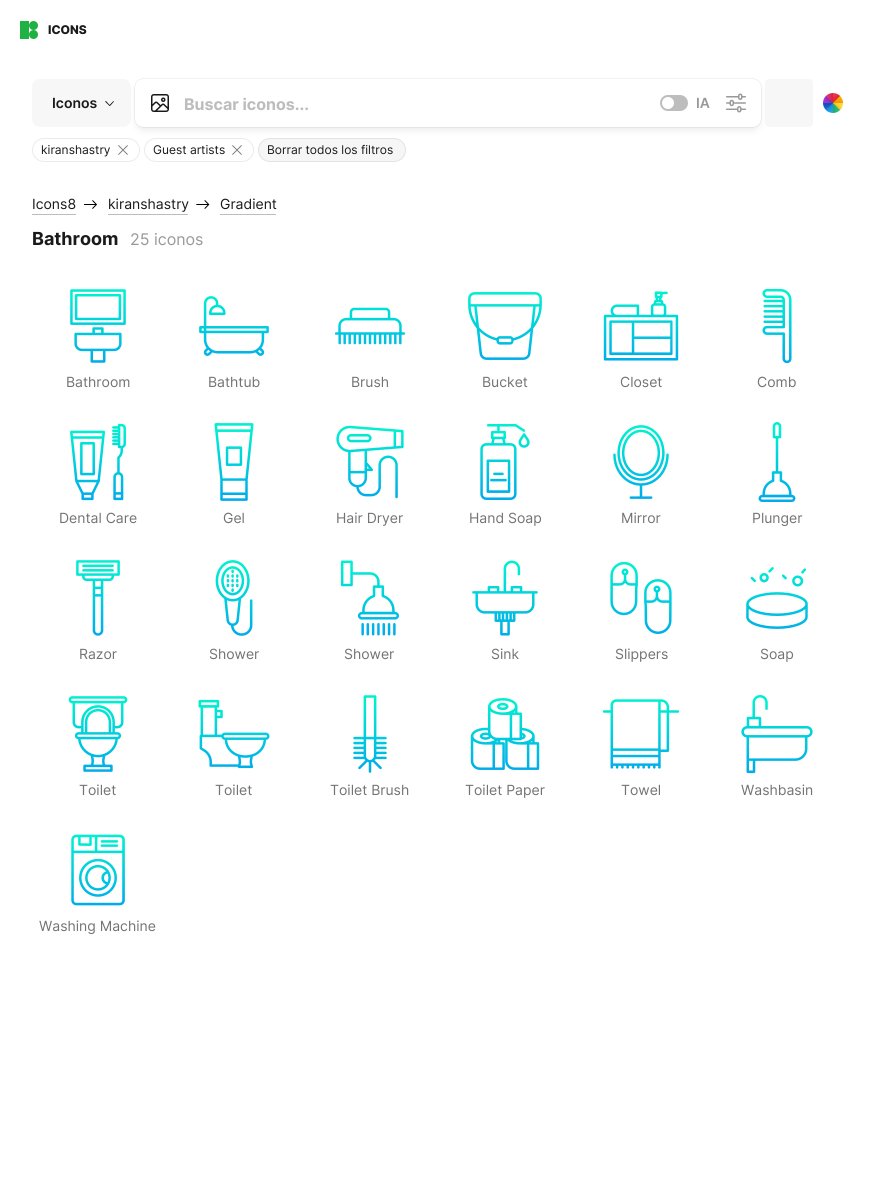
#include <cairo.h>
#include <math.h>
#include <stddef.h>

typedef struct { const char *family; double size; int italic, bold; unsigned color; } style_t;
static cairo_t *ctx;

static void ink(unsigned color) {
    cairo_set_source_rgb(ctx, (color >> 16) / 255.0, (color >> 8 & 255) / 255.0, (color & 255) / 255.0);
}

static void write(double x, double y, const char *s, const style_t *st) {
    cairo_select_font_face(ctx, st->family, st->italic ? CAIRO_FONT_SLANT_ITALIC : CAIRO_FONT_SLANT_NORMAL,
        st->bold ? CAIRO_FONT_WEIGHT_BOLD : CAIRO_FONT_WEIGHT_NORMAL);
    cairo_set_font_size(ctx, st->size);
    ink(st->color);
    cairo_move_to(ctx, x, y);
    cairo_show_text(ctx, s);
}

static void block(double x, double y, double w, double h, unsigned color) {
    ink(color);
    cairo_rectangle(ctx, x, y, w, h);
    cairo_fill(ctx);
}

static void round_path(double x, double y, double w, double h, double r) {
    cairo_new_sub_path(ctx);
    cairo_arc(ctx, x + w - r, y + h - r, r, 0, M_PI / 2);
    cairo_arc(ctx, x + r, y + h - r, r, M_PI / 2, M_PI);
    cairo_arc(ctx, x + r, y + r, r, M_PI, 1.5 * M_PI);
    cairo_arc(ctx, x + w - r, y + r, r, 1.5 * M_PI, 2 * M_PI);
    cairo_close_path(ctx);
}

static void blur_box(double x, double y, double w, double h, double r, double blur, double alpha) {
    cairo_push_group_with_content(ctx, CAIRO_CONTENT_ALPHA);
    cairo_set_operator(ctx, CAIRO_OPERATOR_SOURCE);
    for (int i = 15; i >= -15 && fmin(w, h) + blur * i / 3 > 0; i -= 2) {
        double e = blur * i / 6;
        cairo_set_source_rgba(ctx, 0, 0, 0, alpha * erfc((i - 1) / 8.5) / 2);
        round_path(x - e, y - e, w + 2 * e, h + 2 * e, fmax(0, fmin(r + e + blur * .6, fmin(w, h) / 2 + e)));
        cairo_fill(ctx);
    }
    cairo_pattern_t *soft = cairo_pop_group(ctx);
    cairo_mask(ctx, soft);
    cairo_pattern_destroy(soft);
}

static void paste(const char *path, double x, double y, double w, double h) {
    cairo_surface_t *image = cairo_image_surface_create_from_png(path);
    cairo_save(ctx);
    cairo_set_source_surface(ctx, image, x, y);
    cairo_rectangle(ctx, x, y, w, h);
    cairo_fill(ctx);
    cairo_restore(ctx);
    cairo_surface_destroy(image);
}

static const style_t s1 = {"Inter ExtraBold", 12, 0, 0, 0x1a1a1a};
static const style_t s2 = {"Inter SemiBold", 14, 0, 0, 0x1a1a1a};
static const style_t s3 = {"Inter", 16, 0, 1, 0xbdbdbd};
static const style_t s4 = {"Inter SemiBold", 14, 0, 0, 0x999999};
static const style_t s5 = {"Inter", 12, 0, 0, 0x1a1a1a};
static const style_t s6 = {"Inter", 14, 0, 0, 0x1a1a1a};
static const style_t s7 = {"Inter", 18, 0, 1, 0x1a1a1a};
static const style_t s8 = {"Inter", 16, 0, 0, 0x999999};
static const style_t s9 = {"Inter", 14, 0, 0, 0x737373};

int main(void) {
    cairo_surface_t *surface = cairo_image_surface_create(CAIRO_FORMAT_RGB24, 875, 1189);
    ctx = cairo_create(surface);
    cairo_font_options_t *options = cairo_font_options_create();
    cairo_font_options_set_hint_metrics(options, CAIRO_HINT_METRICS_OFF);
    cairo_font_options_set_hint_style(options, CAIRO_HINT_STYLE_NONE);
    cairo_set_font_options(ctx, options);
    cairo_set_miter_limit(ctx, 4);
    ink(0xffffff);
    cairo_paint(ctx);
    paste("pic1.png", 20, 21, 18, 18);
    write(48, 34, "ICONS", &s1);
    ink(0xf7f7f7);
    round_path(765, 79, 48, 48, 4);
    cairo_fill(ctx);
    round_path(32.5, 138.5, 107, 23, 11.5);
    ink(0xebebeb);
    cairo_set_line_width(ctx, 1);
    cairo_stroke(ctx);
    round_path(144.5, 138.5, 109, 23, 11.5);
    cairo_stroke(ctx);
    ink(0xf6f6f6);
    round_path(258, 138, 148, 24, 12);
    cairo_fill(ctx);
    round_path(258.5, 138.5, 147, 23, 11.5);
    cairo_set_source_rgba(ctx, 0, 0, 0, 0.08);
    cairo_stroke(ctx);
    ink(0x606060);
    blur_box(137, 85, 622, 44, 6, 4, 0.15);
    ink(0xf7f7f7);
    round_path(32, 79, 99, 48, 8);
    cairo_fill(ctx);
    write(52, 108, "Iconos", &s2);
    cairo_new_path(ctx);
    cairo_move_to(ctx, 106, 101);
    cairo_line_to(ctx, 110, 105.5);
    cairo_line_to(ctx, 109.5, 106);
    cairo_line_to(ctx, 105, 101.5);
    cairo_close_path(ctx);
    cairo_fill(ctx);
    cairo_new_path(ctx);
    cairo_move_to(ctx, 109, 105.5);
    cairo_line_to(ctx, 113.5, 101);
    cairo_line_to(ctx, 114, 101.5);
    cairo_line_to(ctx, 110, 106);
    cairo_close_path(ctx);
    cairo_fill(ctx);
    ink(0x606060);
    blur_box(135, 79, 626, 48, 8, 0.5, 0.31);
    ink(0xffffff);
    round_path(135, 79, 626, 48, 8);
    cairo_fill(ctx);
    paste("pic2.png", 151, 94, 18, 18);
    write(184, 110, "Buscar iconos...", &s3);
    round_path(660, 95, 28, 16, 8);
    cairo_fill(ctx);
    ink(0xffffff);
    cairo_arc(ctx, 668, 103, 6, 0, 2 * M_PI);
    cairo_fill(ctx);
    write(696, 108, "IA", &s4);
    paste("pic3.png", 726, 93, 20, 20);
    paste("pic4.png", 823, 93, 20, 20);
    write(41, 154, "kiranshastry", &s5);
    paste("pic5.png", 118, 145, 10, 10);
    write(153, 154, "Guest artists", &s5);
    paste("pic5.png", 232, 145, 10, 10);
    write(267, 154, "Borrar todos los filtros", &s5);
    block(32, 214, 44, 1, 0xbdbdbd);
    write(32, 209, "Icons8", &s6);
    paste("pic6.png", 84, 200, 13, 9);
    block(108, 214, 80, 1, 0xbdbdbd);
    write(108, 209, "kiranshastry", &s6);
    paste("pic7.png", 196, 200, 14, 9);
    block(220, 214, 56, 1, 0xbdbdbd);
    write(220, 209, "Gradient", &s6);
    write(32, 245, "Bathroom", &s7);
    write(130, 245, "25 iconos", &s8);
    paste("pic8.png", 70, 289, 56, 74);
    write(66, 387, "Bathroom", &s9);
    paste("pic9.png", 199, 296, 70, 60);
    write(208, 387, "Bathtub", &s9);
    paste("pic10.png", 334, 307, 72, 38);
    write(351, 387, "Brush", &s9);
    paste("pic11.png", 468, 292, 74, 68);
    write(482, 387, "Bucket", &s9);
    paste("pic12.png", 603, 291, 76, 70);
    write(620, 387, "Closet", &s9);
    paste("pic13.png", 762, 289, 30, 75);
    write(757, 387, "Comb", &s9);
    paste("pic14.png", 70, 423, 56, 78);
    write(59, 523, "Dental Care", &s9);
    paste("pic15.png", 214, 423, 40, 78);
    write(223, 523, "Gel", &s9);
    paste("pic16.png", 336, 425, 68, 74);
    write(336, 523, "Hair Dryer", &s9);
    paste("pic17.png", 480, 424, 50, 76);
    write(469, 523, "Hand Soap", &s9);
    paste("pic18.png", 613, 425, 56, 74);
    write(621, 523, "Mirror", &s9);
    paste("pic19.png", 758, 422, 38, 80);
    write(752, 523, "Plunger", &s9);
    paste("pic20.png", 76, 560, 44, 76);
    write(79, 659, "Razor", &s9);
    paste("pic21.png", 215, 560, 38, 76);
    write(209, 659, "Shower", &s9);
    paste("pic22.png", 340, 560, 59, 76);
    write(344, 659, "Shower", &s9);
    paste("pic23.png", 472, 560, 66, 76);
    write(491, 659, "Sink", &s9);
    paste("pic24.png", 610, 561, 62, 73);
    write(615, 659, "Slippers", &s9);
    paste("pic25.png", 746, 567, 62, 62);
    write(760, 659, "Soap", &s9);
    paste("pic26.png", 68, 696, 60, 76);
    write(79, 795, "Toilet", &s9);
    paste("pic27.png", 198, 699, 72, 70);
    write(215, 795, "Toilet", &s9);
    paste("pic28.png", 353, 695, 34, 78);
    write(330, 795, "Toilet Brush", &s9);
    paste("pic29.png", 470, 698, 70, 72);
    write(465, 795, "Toilet Paper", &s9);
    paste("pic30.png", 602, 699, 78, 70);
    write(621, 795, "Towel", &s9);
    paste("pic31.png", 741, 695, 72, 79);
    write(741, 795, "Washbasin", &s9);
    paste("pic32.png", 71, 834, 54, 72);
    write(39, 931, "Washing Machine", &s9);
    cairo_surface_write_to_png(surface, "screenshot.png");
    cairo_font_options_destroy(options);
    cairo_destroy(ctx);
    cairo_surface_destroy(surface);
    return 0;
}
